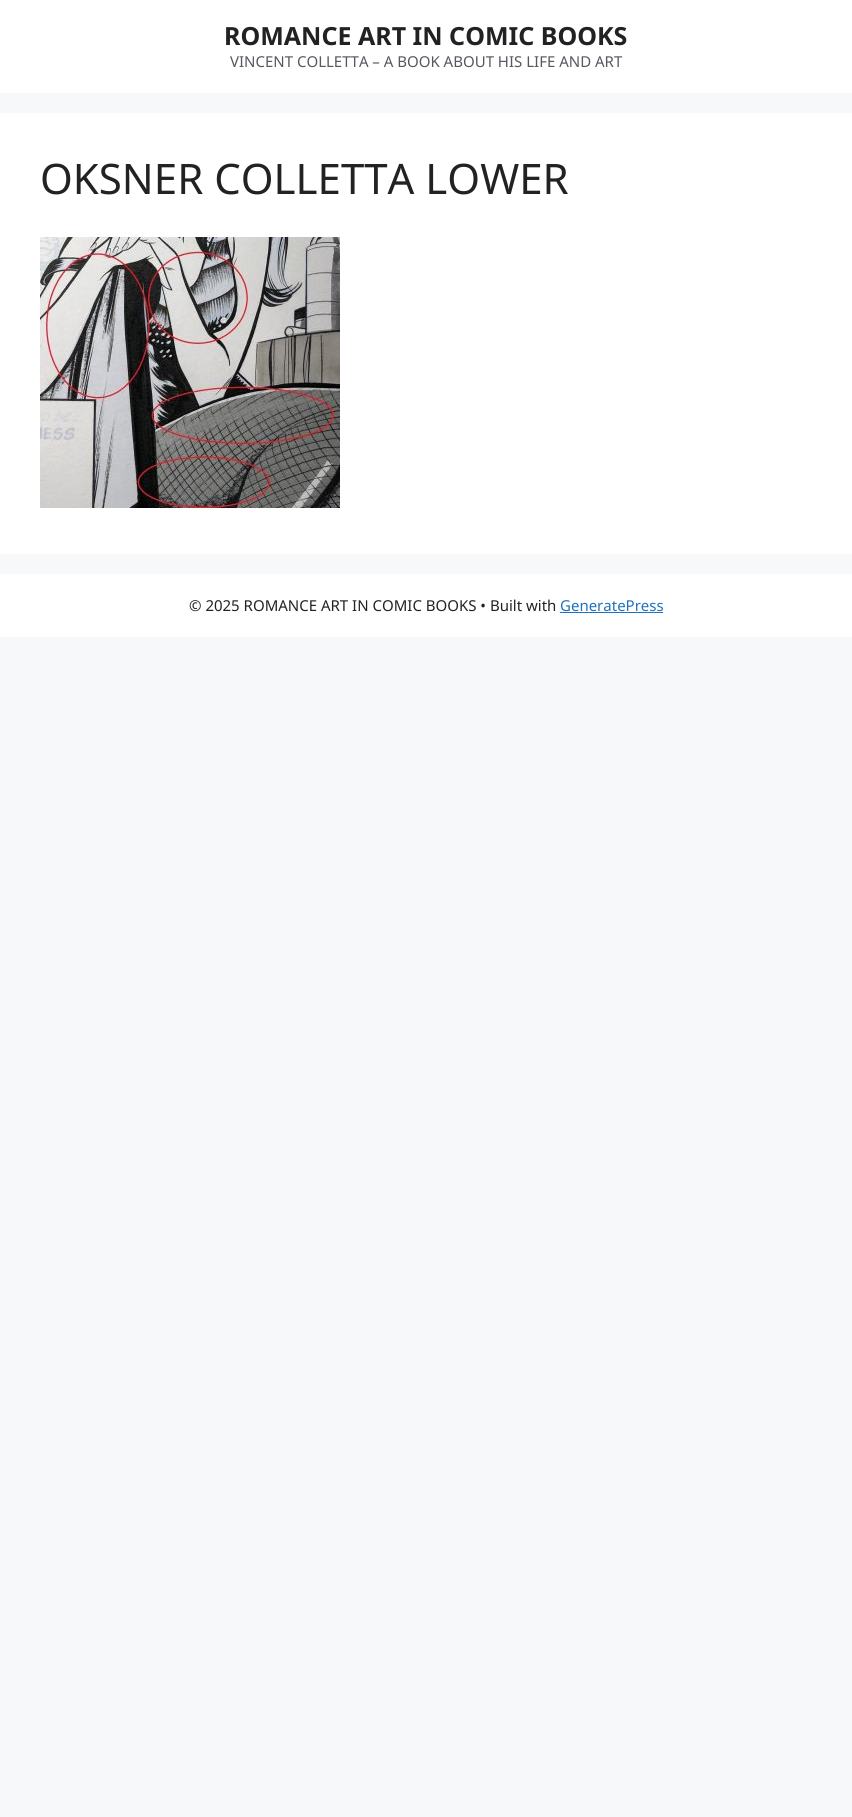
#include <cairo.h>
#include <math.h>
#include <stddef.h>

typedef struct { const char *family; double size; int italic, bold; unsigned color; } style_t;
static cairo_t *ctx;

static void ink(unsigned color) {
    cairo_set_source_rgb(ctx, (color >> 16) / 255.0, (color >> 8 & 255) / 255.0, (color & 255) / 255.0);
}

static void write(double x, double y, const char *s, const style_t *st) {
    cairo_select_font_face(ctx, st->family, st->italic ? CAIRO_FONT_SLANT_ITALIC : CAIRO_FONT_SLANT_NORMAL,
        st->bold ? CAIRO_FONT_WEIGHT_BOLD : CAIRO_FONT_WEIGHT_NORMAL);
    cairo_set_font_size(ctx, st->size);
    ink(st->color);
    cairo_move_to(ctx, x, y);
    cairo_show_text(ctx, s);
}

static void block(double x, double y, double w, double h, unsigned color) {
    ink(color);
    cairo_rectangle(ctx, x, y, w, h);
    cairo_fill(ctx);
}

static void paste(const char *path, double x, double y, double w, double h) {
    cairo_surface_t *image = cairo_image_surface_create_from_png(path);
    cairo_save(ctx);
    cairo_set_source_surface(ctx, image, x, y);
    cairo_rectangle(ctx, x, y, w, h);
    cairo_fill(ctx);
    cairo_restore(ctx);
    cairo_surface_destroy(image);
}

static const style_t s1 = {"Noto Sans", 25, 0, 1, 0x222222};
static const style_t s2 = {"Noto Sans", 15, 0, 0, 0x575760};
static const style_t s3 = {"Noto Sans", 42, 0, 0, 0x222222};
static const style_t s4 = {"Noto Sans", 15, 0, 0, 0x222222};
static const style_t s5 = {"Noto Sans", 15, 0, 0, 0x1e73be};

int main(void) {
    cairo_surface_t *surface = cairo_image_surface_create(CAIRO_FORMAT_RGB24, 852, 1817);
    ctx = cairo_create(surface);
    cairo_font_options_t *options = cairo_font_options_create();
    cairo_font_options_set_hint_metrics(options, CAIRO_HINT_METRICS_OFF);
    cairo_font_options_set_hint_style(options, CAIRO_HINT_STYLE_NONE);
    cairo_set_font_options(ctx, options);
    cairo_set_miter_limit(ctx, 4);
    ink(0xf7f8f9);
    cairo_paint(ctx);
    block(0, 0, 852, 93, 0xffffff);
    write(224, 45, "ROMANCE ART IN COMIC BOOKS", &s1);
    write(230, 67, "VINCENT COLLETTA – A BOOK ABOUT HIS LIFE AND ART", &s2);
    block(0, 113, 852, 441, 0xffffff);
    write(40, 194, "OKSNER COLLETTA LOWER", &s3);
    paste("pic1.png", 40, 237, 300, 271);
    block(0, 574, 852, 63, 0xffffff);
    write(189, 611, "© 2025 ROMANCE ART IN COMIC BOOKS • Built with", &s4);
    write(560, 611, "GeneratePress", &s5);
    block(560, 612, 103, 1, 0x1e73be);
    cairo_surface_write_to_png(surface, "screenshot.png");
    cairo_font_options_destroy(options);
    cairo_destroy(ctx);
    cairo_surface_destroy(surface);
    return 0;
}
